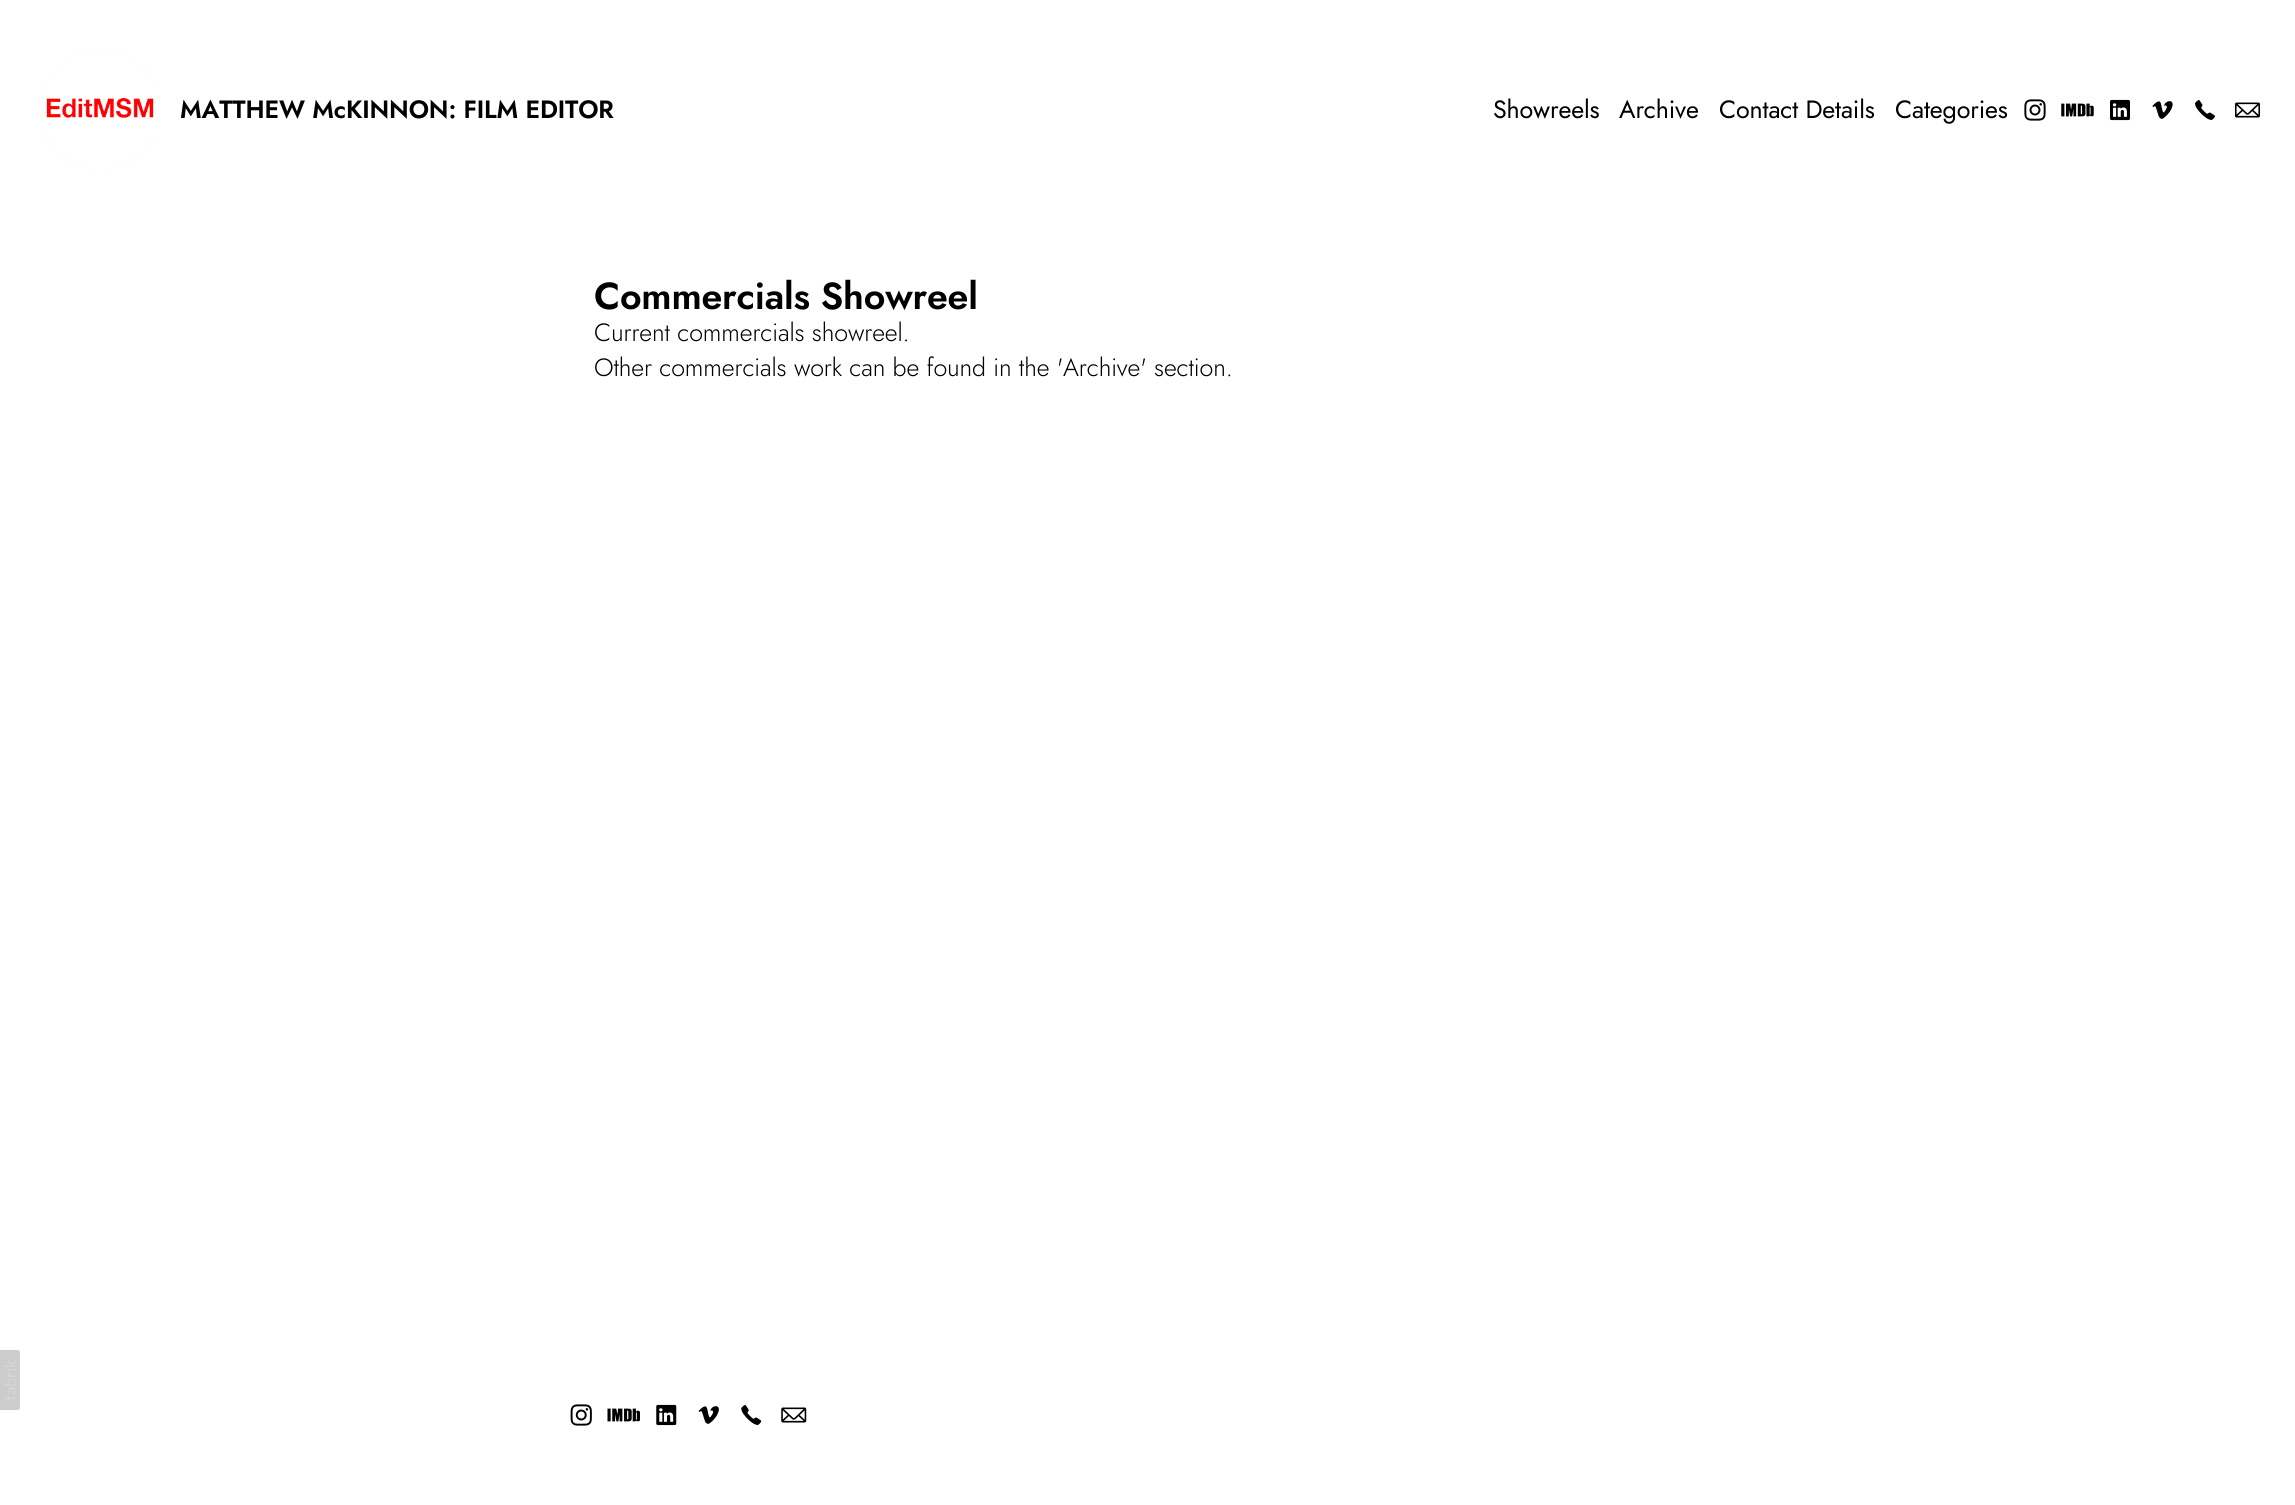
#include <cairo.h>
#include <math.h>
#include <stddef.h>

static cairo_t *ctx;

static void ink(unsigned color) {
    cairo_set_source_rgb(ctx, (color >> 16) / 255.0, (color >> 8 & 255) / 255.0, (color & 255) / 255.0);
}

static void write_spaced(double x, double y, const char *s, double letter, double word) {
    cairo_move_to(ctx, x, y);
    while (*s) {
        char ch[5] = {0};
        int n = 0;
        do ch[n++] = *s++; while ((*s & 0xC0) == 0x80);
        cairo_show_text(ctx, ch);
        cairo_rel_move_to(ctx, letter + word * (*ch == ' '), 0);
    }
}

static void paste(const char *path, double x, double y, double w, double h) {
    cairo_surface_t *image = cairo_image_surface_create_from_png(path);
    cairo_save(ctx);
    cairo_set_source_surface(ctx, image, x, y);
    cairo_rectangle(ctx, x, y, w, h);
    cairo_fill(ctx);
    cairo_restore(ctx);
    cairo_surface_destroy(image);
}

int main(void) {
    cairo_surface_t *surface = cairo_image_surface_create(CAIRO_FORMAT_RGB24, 2295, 1505);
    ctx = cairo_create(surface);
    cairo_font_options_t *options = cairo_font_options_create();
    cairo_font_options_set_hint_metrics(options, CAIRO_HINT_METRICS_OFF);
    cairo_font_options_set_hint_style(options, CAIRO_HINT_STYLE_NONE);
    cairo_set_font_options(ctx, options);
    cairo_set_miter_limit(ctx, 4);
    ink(0xffffff);
    cairo_paint(ctx);
    paste("pic1.png", 43, 50, 111, 119);
    cairo_select_font_face(ctx, "Jost SemiBold", CAIRO_FONT_SLANT_NORMAL, CAIRO_FONT_WEIGHT_NORMAL);
    cairo_set_font_size(ctx, 25);
    ink(0x000000);
    write_spaced(180, 118, "MATTHEW McKINNON: FILM EDITOR", -0.12, 0);
    cairo_select_font_face(ctx, "Jost", CAIRO_FONT_SLANT_NORMAL, CAIRO_FONT_WEIGHT_NORMAL);
    write_spaced(1493, 118, "Showreels", -0.12, 0);
    write_spaced(1619, 118, "Archive", -0.12, 0);
    write_spaced(1719, 118, "Contact Details", -0.12, 0);
    write_spaced(1895, 118, "Categories", -0.12, 0);
    paste("pic2.png", 2024, 99, 22, 22);
    paste("pic3.png", 2061, 103, 33, 14);
    paste("pic4.png", 2110, 99, 20, 22);
    paste("pic5.png", 2152, 101, 21, 18);
    paste("pic6.png", 2195, 100, 20, 20);
    paste("pic7.png", 2235, 102, 25, 16);
    cairo_select_font_face(ctx, "Jost SemiBold", CAIRO_FONT_SLANT_NORMAL, CAIRO_FONT_WEIGHT_NORMAL);
    cairo_set_font_size(ctx, 37.5);
    write_spaced(594, 309, "Commercials Showreel", -0.2, 0);
    cairo_select_font_face(ctx, "Jost Light", CAIRO_FONT_SLANT_NORMAL, CAIRO_FONT_WEIGHT_NORMAL);
    cairo_set_font_size(ctx, 25);
    write_spaced(594, 341, "Current commercials showreel.", -0.12, 0);
    write_spaced(594, 376, "Other commercials work can be found in the 'Archive' section.", -0.12, 0);
    paste("pic8.png", 570, 1404, 22, 22);
    paste("pic9.png", 607, 1408, 33, 14);
    paste("pic10.png", 656, 1404, 21, 22);
    paste("pic11.png", 698, 1406, 21, 18);
    paste("pic12.png", 741, 1405, 21, 20);
    paste("pic13.png", 781, 1407, 26, 16);
    paste("pic14.png", 0, 1350, 20, 60);
    cairo_surface_write_to_png(surface, "screenshot.png");
    cairo_font_options_destroy(options);
    cairo_destroy(ctx);
    cairo_surface_destroy(surface);
    return 0;
}
